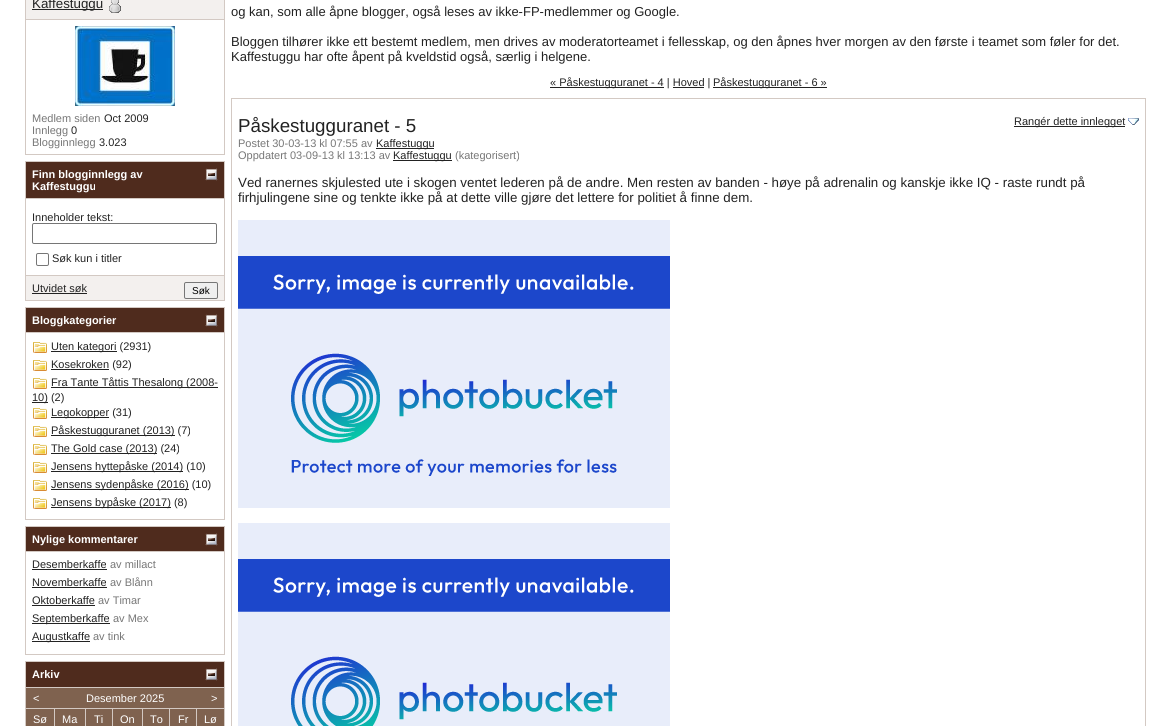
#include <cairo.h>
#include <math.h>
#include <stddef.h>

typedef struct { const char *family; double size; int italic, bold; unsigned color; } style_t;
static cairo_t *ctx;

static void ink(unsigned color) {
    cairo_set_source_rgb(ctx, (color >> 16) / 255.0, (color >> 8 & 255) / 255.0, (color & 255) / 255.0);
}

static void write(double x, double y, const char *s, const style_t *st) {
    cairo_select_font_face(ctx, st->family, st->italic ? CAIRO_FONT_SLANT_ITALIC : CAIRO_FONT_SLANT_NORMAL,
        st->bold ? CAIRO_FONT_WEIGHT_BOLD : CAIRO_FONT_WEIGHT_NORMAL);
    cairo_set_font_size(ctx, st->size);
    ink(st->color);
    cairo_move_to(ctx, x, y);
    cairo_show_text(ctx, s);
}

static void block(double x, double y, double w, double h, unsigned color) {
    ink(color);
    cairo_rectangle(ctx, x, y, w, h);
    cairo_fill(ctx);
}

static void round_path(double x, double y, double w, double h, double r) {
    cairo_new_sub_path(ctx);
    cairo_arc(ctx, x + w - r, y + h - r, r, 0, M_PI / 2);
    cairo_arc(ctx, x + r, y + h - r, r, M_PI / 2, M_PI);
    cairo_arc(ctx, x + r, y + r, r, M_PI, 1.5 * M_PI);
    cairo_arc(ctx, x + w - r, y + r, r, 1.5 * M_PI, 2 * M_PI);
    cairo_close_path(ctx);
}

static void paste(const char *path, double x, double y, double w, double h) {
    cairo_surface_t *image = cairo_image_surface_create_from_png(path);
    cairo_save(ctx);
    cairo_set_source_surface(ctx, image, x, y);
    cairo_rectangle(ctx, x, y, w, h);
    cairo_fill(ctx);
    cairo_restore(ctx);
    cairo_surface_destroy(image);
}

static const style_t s1 = {"Liberation Sans", 13.33, 0, 0, 0x222222};
static const style_t s2 = {"Liberation Sans", 11, 0, 0, 0x777777};
static const style_t s3 = {"Liberation Sans", 11, 0, 0, 0x222222};
static const style_t s4 = {"Liberation Sans", 11, 0, 1, 0xffffff};
static const style_t s5 = {"Liberation Sans", 10, 0, 0, 0x000000};
static const style_t s6 = {"Liberation Sans", 11, 0, 0, 0xffffff};
static const style_t s7 = {"Liberation Sans", 13, 0, 0, 0x222222};
static const style_t s8 = {"Liberation Sans", 18.75, 0, 0, 0x222222};

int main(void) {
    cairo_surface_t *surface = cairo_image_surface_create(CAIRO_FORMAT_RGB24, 1171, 726);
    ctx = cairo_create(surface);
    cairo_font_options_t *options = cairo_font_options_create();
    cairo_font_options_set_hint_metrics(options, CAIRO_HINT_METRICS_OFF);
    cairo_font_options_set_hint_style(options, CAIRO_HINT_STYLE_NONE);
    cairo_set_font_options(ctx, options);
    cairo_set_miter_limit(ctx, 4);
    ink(0xffffff);
    cairo_paint(ctx);
    block(25, 0, 200, 155, 0xd3c9c3);
    block(26, 0, 198, 19, 0xf3f0ee);
    block(32, 9, 71, 1, 0x222222);
    write(32, 8, "Kaffestuggu", &s1);
    paste("pic1.png", 109, 0, 12, 13);
    block(26, 20, 198, 134, 0xffffff);
    paste("pic2.png", 75, 26, 100, 80);
    write(32, 122, "Medlem siden", &s2);
    write(104, 122, "Oct 2009", &s3);
    write(32, 134, "Innlegg", &s2);
    write(71, 134, "0", &s3);
    write(32, 146, "Blogginnlegg", &s2);
    write(99, 146, "3.023", &s3);
    block(25, 161, 200, 140, 0xd3c9c3);
    block(26, 162, 198, 36, 0x4f2b1d);
    write(32, 178, "Finn blogginnlegg av", &s4);
    paste("pic3.png", 205, 168, 13, 13);
    write(32, 190, "Kaffestuggu", &s4);
    block(26, 199, 198, 76, 0xffffff);
    write(32, 221, "Inneholder tekst:", &s3);
    round_path(32.5, 223.5, 184, 20, 1.5);
    ink(0x767676);
    cairo_set_line_width(ctx, 1);
    cairo_stroke(ctx);
    round_path(36.5, 253.5, 12, 12, 1.5);
    cairo_stroke(ctx);
    write(52, 262, "Søk kun i titler", &s3);
    block(26, 276, 198, 24, 0xf3f0ee);
    write(32, 292, "Utvidet søk", &s3);
    block(32, 293, 55, 1, 0x222222);
    ink(0xefefef);
    round_path(184.5, 282.5, 33, 16, 1.5);
    cairo_fill_preserve(ctx);
    ink(0x767676);
    cairo_stroke(ctx);
    write(192, 294, "Søk", &s5);
    block(25, 307, 200, 213, 0xd3c9c3);
    block(26, 308, 198, 24, 0x4f2b1d);
    write(32, 324, "Bloggkategorier", &s4);
    paste("pic3.png", 205, 314, 13, 13);
    block(26, 333, 198, 186, 0xffffff);
    paste("pic4.png", 33, 342, 14, 11);
    block(51, 351, 66, 1, 0x222222);
    write(51, 350, "Uten kategori (2931)", &s3);
    paste("pic4.png", 33, 360, 14, 11);
    block(51, 369, 58, 1, 0x222222);
    write(51, 368, "Kosekroken (92)", &s3);
    paste("pic4.png", 33, 378, 14, 11);
    block(51, 387, 167, 1, 0x222222);
    write(51, 386, "Fra Tante Tåttis Thesalong (2008-", &s3);
    block(32, 402, 16, 1, 0x222222);
    write(32, 401, "10) (2)", &s3);
    paste("pic4.png", 33, 408, 14, 11);
    block(51, 417, 58, 1, 0x222222);
    write(51, 416, "Legokopper (31)", &s3);
    paste("pic4.png", 33, 426, 14, 11);
    block(51, 435, 124, 1, 0x222222);
    write(51, 434, "Påskestugguranet (2013) (7)", &s3);
    paste("pic4.png", 33, 444, 14, 11);
    block(51, 453, 106, 1, 0x222222);
    write(51, 452, "The Gold case (2013) (24)", &s3);
    paste("pic4.png", 33, 462, 14, 11);
    block(51, 471, 132, 1, 0x222222);
    write(51, 470, "Jensens hyttepåske (2014) (10)", &s3);
    paste("pic4.png", 33, 480, 14, 11);
    block(51, 489, 138, 1, 0x222222);
    write(51, 488, "Jensens sydenpåske (2016) (10)", &s3);
    paste("pic4.png", 33, 498, 14, 11);
    block(51, 507, 120, 1, 0x222222);
    write(51, 506, "Jensens bypåske (2017) (8)", &s3);
    block(25, 526, 200, 129, 0xd3c9c3);
    block(26, 527, 198, 24, 0x4f2b1d);
    write(32, 543, "Nylige kommentarer", &s4);
    paste("pic3.png", 205, 533, 13, 13);
    block(26, 552, 198, 102, 0xffffff);
    write(32, 568, "Desemberkaffe", &s3);
    block(32, 569, 75, 1, 0x222222);
    write(110, 568, "av millact", &s2);
    write(32, 586, "Novemberkaffe", &s3);
    block(32, 587, 75, 1, 0x222222);
    write(110, 586, "av Blånn", &s2);
    write(32, 604, "Oktoberkaffe", &s3);
    block(32, 605, 63, 1, 0x222222);
    write(98, 604, "av Timar", &s2);
    block(32, 623, 78, 1, 0x222222);
    write(32, 622, "Septemberkaffe", &s3);
    write(113, 622, "av Mex", &s2);
    block(32, 641, 58, 1, 0x222222);
    write(32, 640, "Augustkaffe", &s3);
    write(93, 640, "av tink", &s2);
    block(25, 661, 200, 65, 0xd3c9c3);
    block(26, 662, 198, 25, 0x4f2b1d);
    write(32, 678, "Arkiv", &s4);
    paste("pic3.png", 205, 668, 13, 13);
    block(26, 688, 198, 20, 0x7f624f);
    write(33, 702, "<", &s6);
    write(86, 702, "Desember 2025", &s6);
    write(211, 702, ">", &s6);
    block(26, 709, 28, 17, 0x7f624f);
    write(33, 723, "Sø", &s6);
    block(55, 709, 30, 17, 0x7f624f);
    write(62, 723, "Ma", &s6);
    block(86, 709, 26, 17, 0x7f624f);
    write(94, 723, "Ti", &s6);
    block(113, 709, 29, 17, 0x7f624f);
    write(120, 723, "On", &s6);
    block(143, 709, 26, 17, 0x7f624f);
    write(150, 723, "To", &s6);
    block(170, 709, 26, 17, 0x7f624f);
    write(178, 723, "Fr", &s6);
    block(197, 709, 27, 17, 0x7f624f);
    write(204, 723, "Lø", &s6);
    write(231, 16, "og kan, som alle åpne blogger, også leses av ikke-FP-medlemmer og Google.", &s7);
    write(231, 46, "Bloggen tilhører ikke ett bestemt medlem, men drives av moderatorteamet i fellesskap, og den åpnes hver morgen av den første i teamet som føler for det.", &s7);
    write(231, 61, "Kaffestuggu har ofte åpent på kveldstid også, særlig i helgene.", &s7);
    block(550, 87, 114, 1, 0x222222);
    write(550, 86, "« Påskestugguranet - 4 | Hoved |", &s3);
    block(713, 87, 114, 1, 0x222222);
    write(713, 86, "Påskestugguranet - 6 »", &s3);
    block(673, 87, 31, 1, 0x222222);
    block(231, 98, 915, 628, 0xd3c9c3);
    block(232, 99, 913, 627, 0xffffff);
    write(238, 132, "Påskestugguranet - 5", &s8);
    block(1014, 126, 111, 1, 0x222222);
    write(1014, 125, "Rangér dette innlegget", &s3);
    paste("pic5.png", 1128, 118, 11, 7);
    write(238, 147, "Postet 30-03-13 kl 07:55 av", &s2);
    block(376, 148, 58, 1, 0x222222);
    write(376, 147, "Kaffestuggu", &s3);
    write(238, 159, "Oppdatert 03-09-13 kl 13:13 av", &s2);
    block(393, 160, 59, 1, 0x222222);
    write(393, 159, "Kaffestuggu", &s3);
    write(455, 159, "(kategorisert)", &s2);
    write(238, 187, "Ved ranernes skjulested ute i skogen ventet lederen på de andre. Men resten av banden - høye på adrenalin og kanskje ikke IQ - raste rundt på", &s1);
    write(238, 202, "firhjulingene sine og tenkte ikke på at dette ville gjøre det lettere for politiet å finne dem.", &s1);
    paste("pic6.png", 238, 220, 432, 288);
    paste("pic7.png", 238, 523, 432, 203);
    cairo_surface_write_to_png(surface, "screenshot.png");
    cairo_font_options_destroy(options);
    cairo_destroy(ctx);
    cairo_surface_destroy(surface);
    return 0;
}
